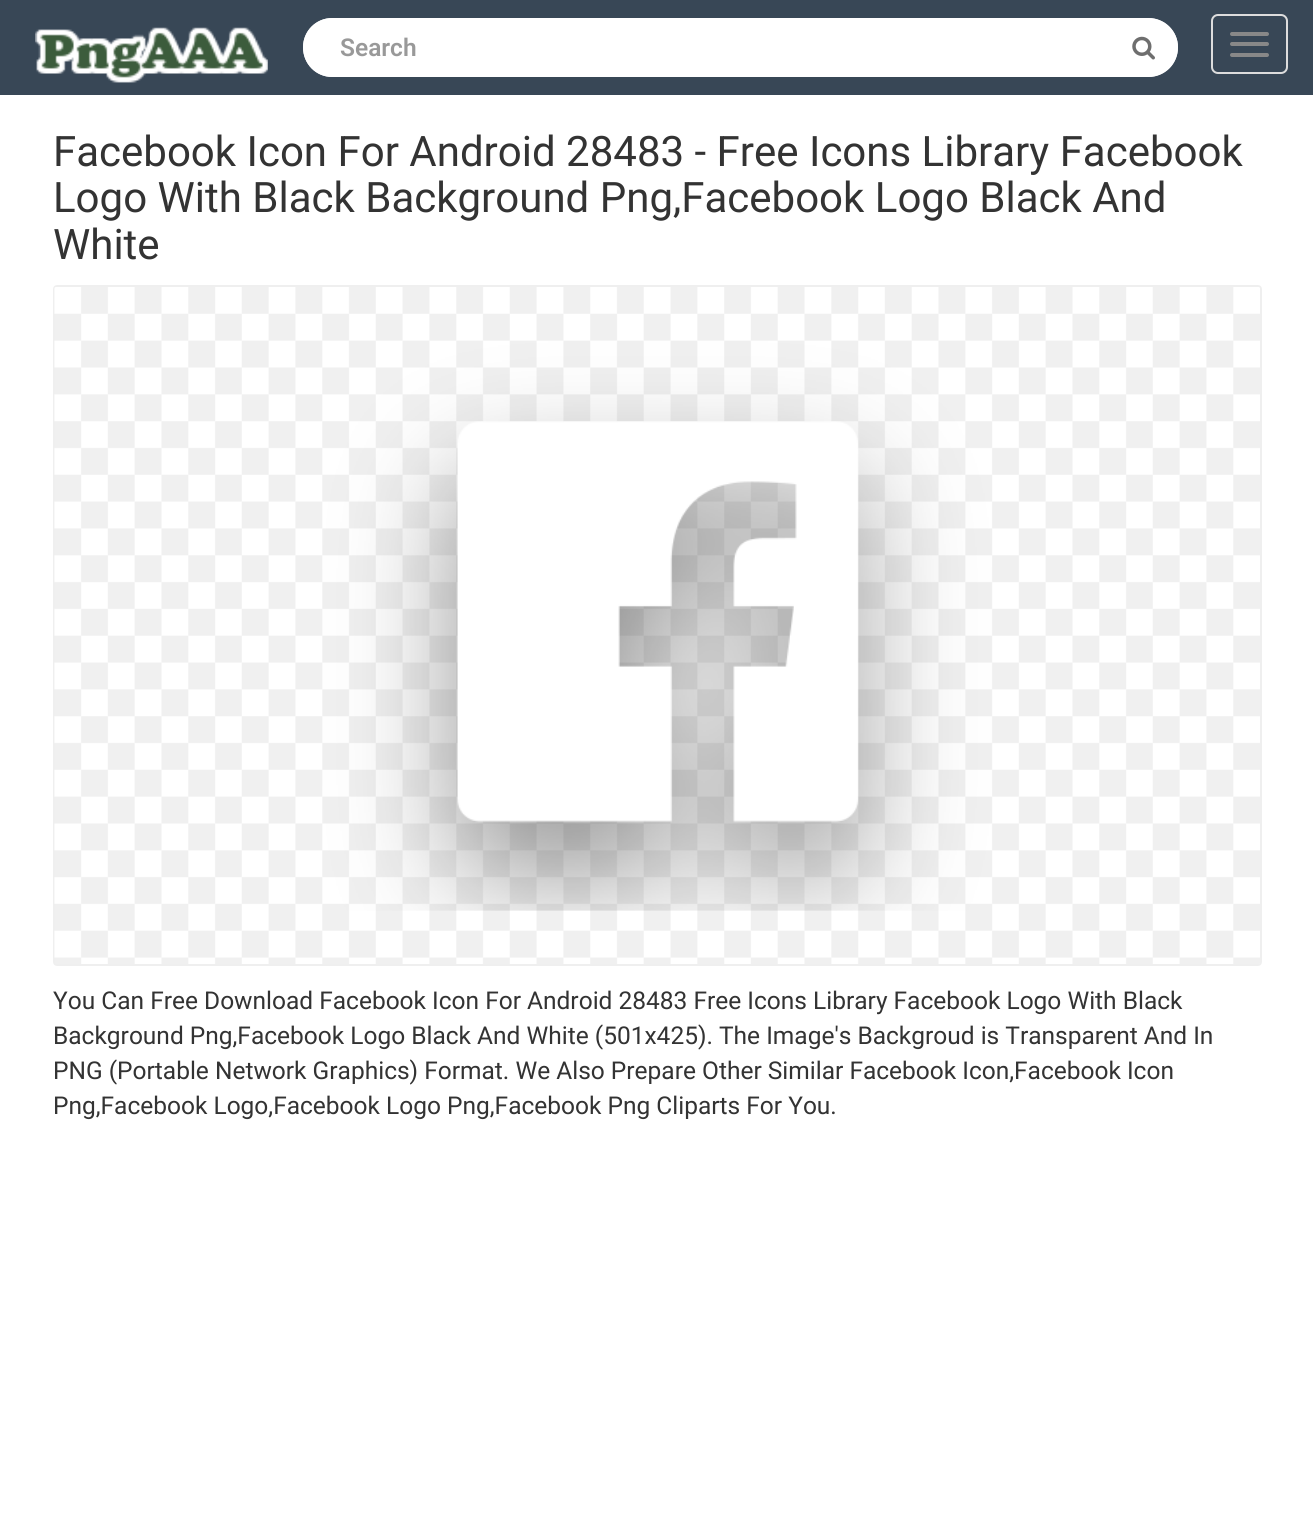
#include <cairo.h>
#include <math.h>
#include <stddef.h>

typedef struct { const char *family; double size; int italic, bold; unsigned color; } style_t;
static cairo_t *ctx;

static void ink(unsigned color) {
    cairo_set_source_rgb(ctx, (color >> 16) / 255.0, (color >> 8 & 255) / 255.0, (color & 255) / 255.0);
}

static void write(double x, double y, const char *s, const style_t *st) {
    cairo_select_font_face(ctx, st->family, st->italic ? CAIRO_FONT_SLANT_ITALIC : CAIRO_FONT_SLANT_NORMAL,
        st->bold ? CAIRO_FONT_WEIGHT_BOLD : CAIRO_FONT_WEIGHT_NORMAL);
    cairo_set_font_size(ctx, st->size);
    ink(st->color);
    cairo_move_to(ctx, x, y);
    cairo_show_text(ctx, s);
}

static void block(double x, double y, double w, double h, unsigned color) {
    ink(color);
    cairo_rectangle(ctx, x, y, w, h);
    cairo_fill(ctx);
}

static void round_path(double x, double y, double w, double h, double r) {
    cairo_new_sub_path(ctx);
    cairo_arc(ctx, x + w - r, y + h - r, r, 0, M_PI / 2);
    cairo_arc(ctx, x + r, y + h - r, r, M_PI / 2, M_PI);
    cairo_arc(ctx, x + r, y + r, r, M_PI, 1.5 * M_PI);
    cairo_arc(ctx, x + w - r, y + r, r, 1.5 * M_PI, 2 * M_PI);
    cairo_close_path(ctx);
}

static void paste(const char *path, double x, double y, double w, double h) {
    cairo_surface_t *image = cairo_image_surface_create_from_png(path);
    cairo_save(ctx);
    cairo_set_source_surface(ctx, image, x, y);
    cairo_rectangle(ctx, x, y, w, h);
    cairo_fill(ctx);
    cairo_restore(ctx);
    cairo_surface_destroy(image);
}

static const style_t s1 = {"Roboto SemiBold", 24.5, 0, 0, 0x999999};
static const style_t s2 = {"Roboto", 42, 0, 0, 0x333333};
static const style_t s3 = {"Roboto", 24.5, 0, 0, 0x333333};

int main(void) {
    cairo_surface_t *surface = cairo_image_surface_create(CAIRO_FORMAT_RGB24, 1313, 1524);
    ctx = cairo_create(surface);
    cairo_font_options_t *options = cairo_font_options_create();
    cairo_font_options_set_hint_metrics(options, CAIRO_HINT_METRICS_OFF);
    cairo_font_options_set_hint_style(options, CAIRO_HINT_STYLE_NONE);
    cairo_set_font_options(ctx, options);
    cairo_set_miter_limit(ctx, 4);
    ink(0xffffff);
    cairo_paint(ctx);
    block(0, 0, 1313, 95, 0x384756);
    paste("pic1.png", 35, 27, 233, 56);
    ink(0xffffff);
    cairo_new_path(ctx);
    cairo_move_to(ctx, 332.5, 18);
    cairo_line_to(ctx, 1113, 18);
    cairo_line_to(ctx, 1113, 77);
    cairo_line_to(ctx, 332.5, 77);
    cairo_curve_to(ctx, 316, 77, 303, 64, 303, 47.5);
    cairo_curve_to(ctx, 303, 31, 316, 18, 332.5, 18);
    cairo_close_path(ctx);
    cairo_fill(ctx);
    cairo_set_source_rgba(ctx, 1, 1, 1, 0.9);
    cairo_set_fill_rule(ctx, CAIRO_FILL_RULE_EVEN_ODD);
    cairo_new_path(ctx);
    cairo_move_to(ctx, 332, 18);
    cairo_line_to(ctx, 1113, 18);
    cairo_line_to(ctx, 1113, 77);
    cairo_line_to(ctx, 332, 77);
    cairo_curve_to(ctx, 316, 77, 303, 64, 303, 47);
    cairo_curve_to(ctx, 303, 31, 316, 18, 332, 18);
    cairo_close_path(ctx);
    cairo_move_to(ctx, 332, 19);
    cairo_line_to(ctx, 1113, 19);
    cairo_line_to(ctx, 1113, 75);
    cairo_line_to(ctx, 332, 75);
    cairo_curve_to(ctx, 317, 75, 304, 63, 304, 47);
    cairo_curve_to(ctx, 304, 32, 317, 19, 332, 19);
    cairo_close_path(ctx);
    cairo_fill(ctx);
    write(340, 56, "Search", &s1);
    ink(0xffffff);
    cairo_new_path(ctx);
    cairo_move_to(ctx, 1111, 18);
    cairo_line_to(ctx, 1148.5, 18);
    cairo_curve_to(ctx, 1165, 18, 1178, 31, 1178, 47.5);
    cairo_curve_to(ctx, 1178, 64, 1165, 77, 1148.5, 77);
    cairo_line_to(ctx, 1111, 77);
    cairo_close_path(ctx);
    cairo_fill(ctx);
    cairo_set_source_rgba(ctx, 1, 1, 1, 0.9);
    cairo_new_path(ctx);
    cairo_move_to(ctx, 1111, 18);
    cairo_line_to(ctx, 1148, 18);
    cairo_curve_to(ctx, 1164, 18, 1178, 31, 1178, 47);
    cairo_curve_to(ctx, 1178, 64, 1164, 77, 1148, 77);
    cairo_line_to(ctx, 1111, 77);
    cairo_close_path(ctx);
    cairo_move_to(ctx, 1111, 19);
    cairo_line_to(ctx, 1148, 19);
    cairo_curve_to(ctx, 1163, 19, 1176, 32, 1176, 47);
    cairo_curve_to(ctx, 1176, 63, 1163, 75, 1148, 75);
    cairo_line_to(ctx, 1111, 75);
    cairo_close_path(ctx);
    cairo_fill(ctx);
    paste("pic2.png", 1132, 36, 23, 24);
    round_path(1212, 15, 75, 58, 6);
    ink(0xdddddd);
    cairo_stroke(ctx);
    ink(0x888888);
    round_path(1230, 32, 39, 4, 2);
    cairo_fill(ctx);
    round_path(1230, 42, 39, 4, 2);
    cairo_fill(ctx);
    round_path(1230, 53, 39, 4, 2);
    cairo_fill(ctx);
    write(53, 166, "Facebook Icon For Android 28483 - Free Icons Library Facebook", &s2);
    write(53, 212, "Logo With Black Background Png,Facebook Logo Black And", &s2);
    write(53, 259, "White", &s2);
    round_path(54, 286, 1207, 679, 3);
    ink(0xefefef);
    cairo_stroke(ctx);
    paste("pic3.png", 54, 287, 1206, 677);
    write(53, 1009, "You Can Free Download Facebook Icon For Android 28483 Free Icons Library Facebook Logo With Black", &s3);
    write(53, 1044, "Background Png,Facebook Logo Black And White (501x425). The Image's Backgroud is Transparent And In", &s3);
    write(53, 1079, "PNG (Portable Network Graphics) Format. We Also Prepare Other Similar Facebook Icon,Facebook Icon", &s3);
    write(53, 1114, "Png,Facebook Logo,Facebook Logo Png,Facebook Png Cliparts For You.", &s3);
    cairo_surface_write_to_png(surface, "screenshot.png");
    cairo_font_options_destroy(options);
    cairo_destroy(ctx);
    cairo_surface_destroy(surface);
    return 0;
}
